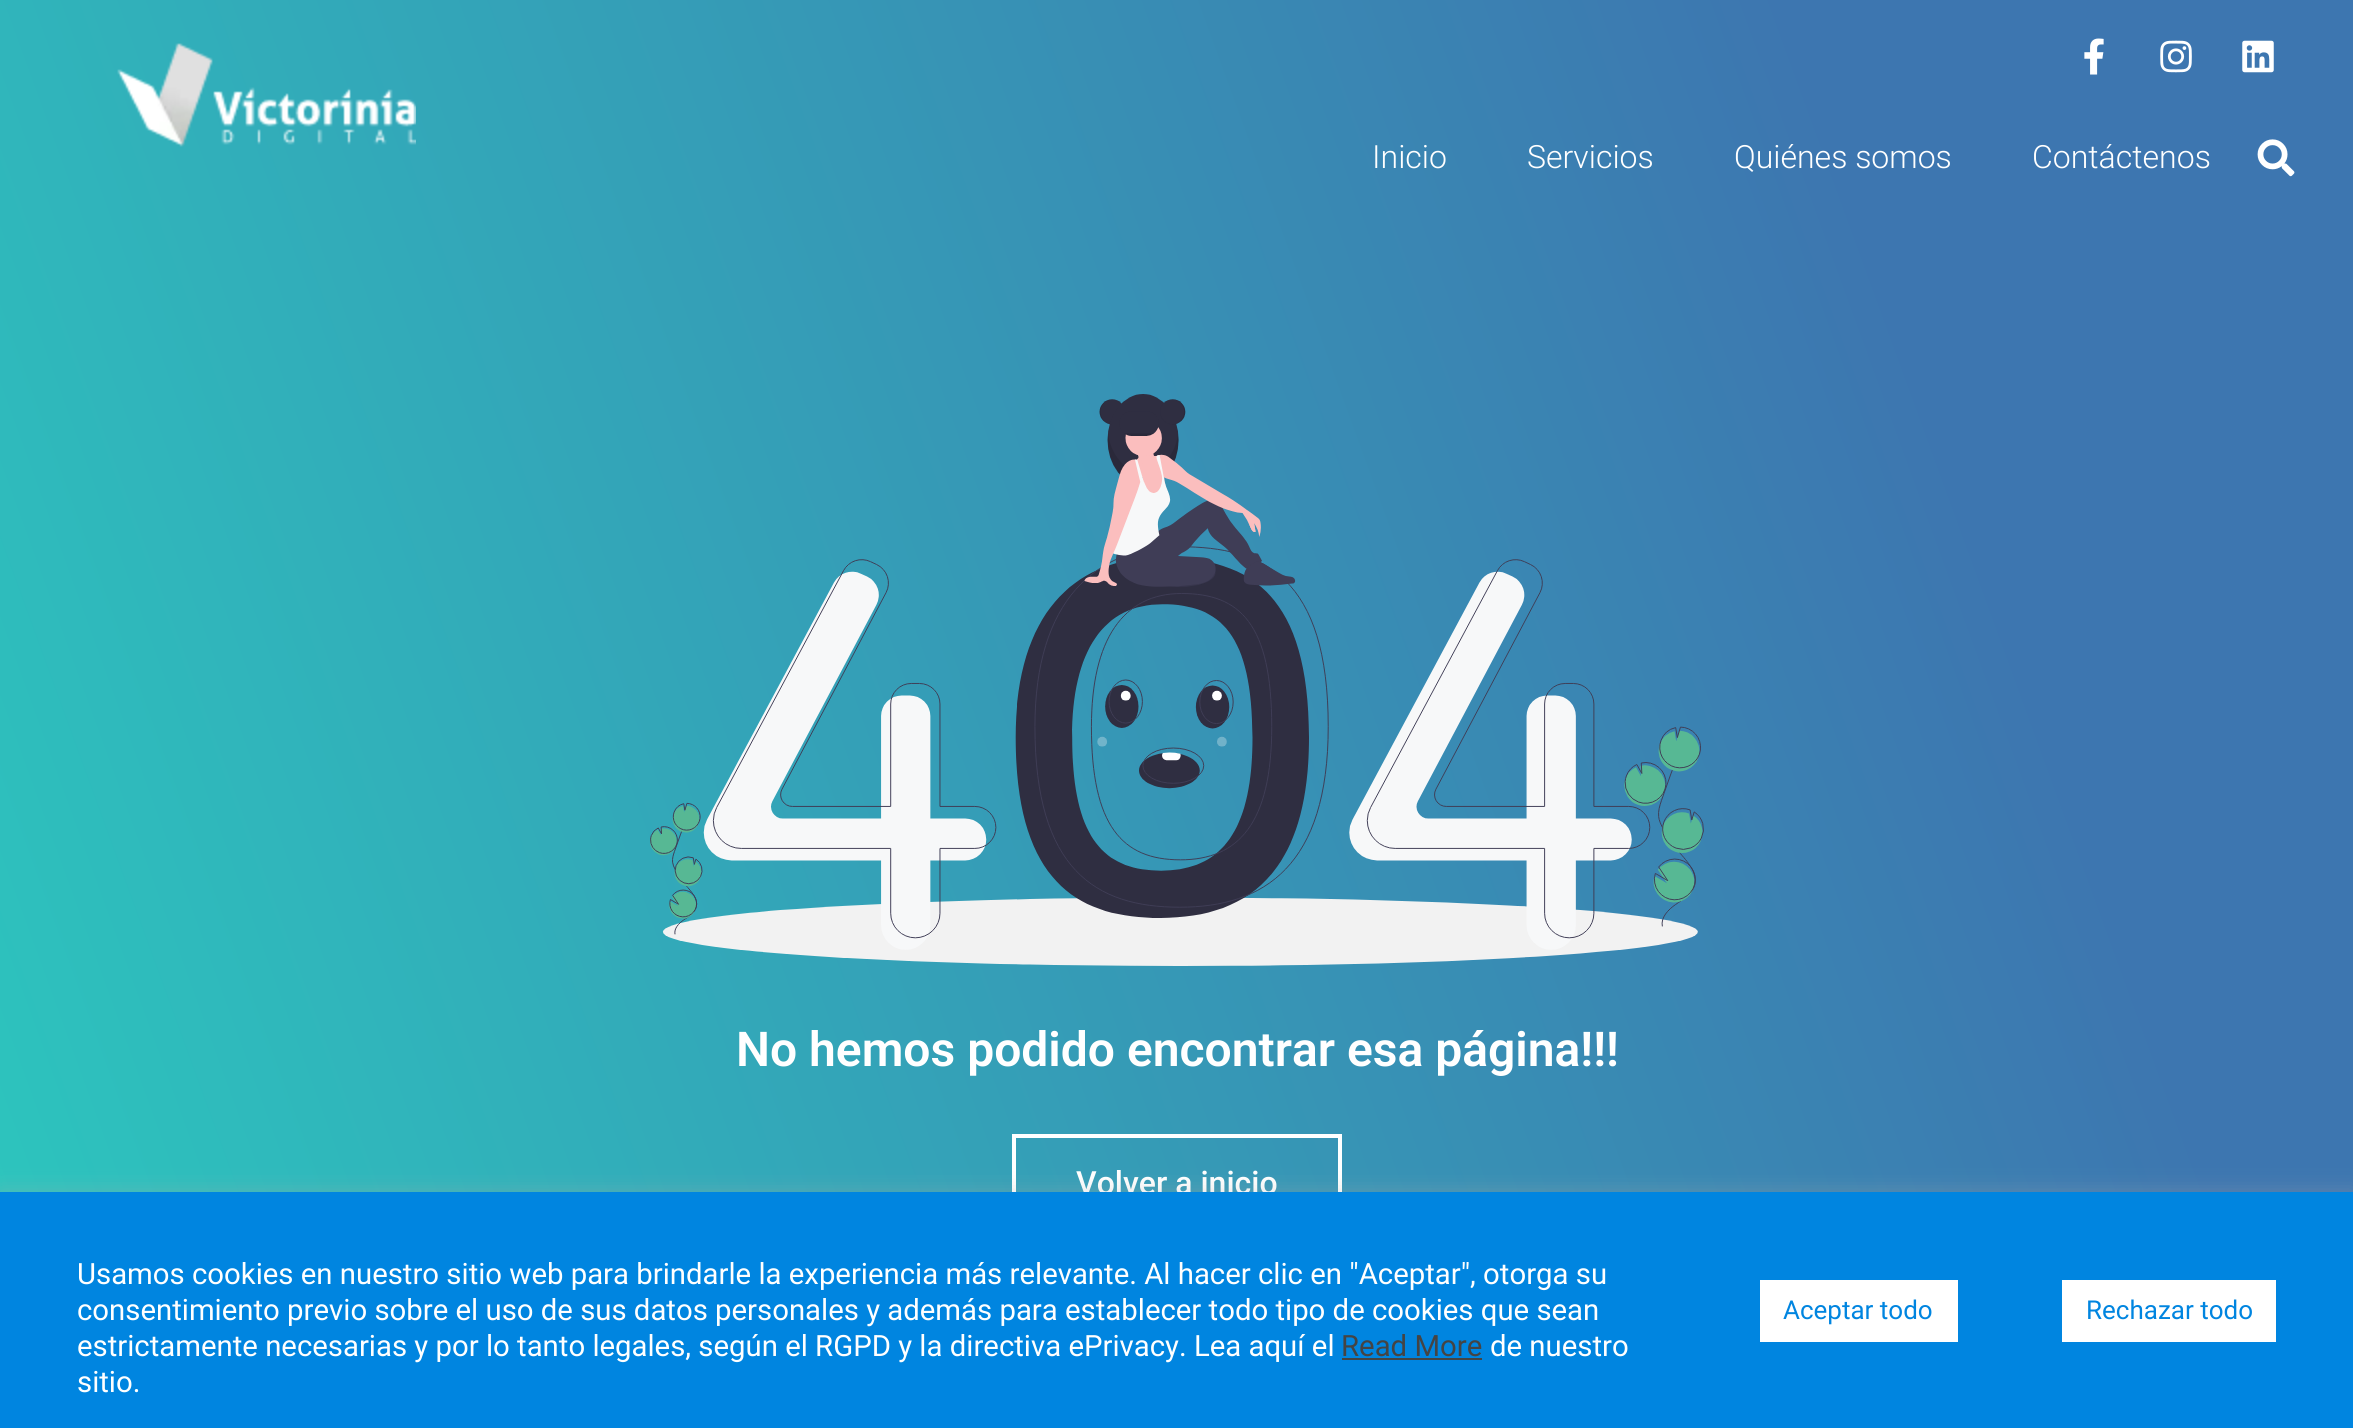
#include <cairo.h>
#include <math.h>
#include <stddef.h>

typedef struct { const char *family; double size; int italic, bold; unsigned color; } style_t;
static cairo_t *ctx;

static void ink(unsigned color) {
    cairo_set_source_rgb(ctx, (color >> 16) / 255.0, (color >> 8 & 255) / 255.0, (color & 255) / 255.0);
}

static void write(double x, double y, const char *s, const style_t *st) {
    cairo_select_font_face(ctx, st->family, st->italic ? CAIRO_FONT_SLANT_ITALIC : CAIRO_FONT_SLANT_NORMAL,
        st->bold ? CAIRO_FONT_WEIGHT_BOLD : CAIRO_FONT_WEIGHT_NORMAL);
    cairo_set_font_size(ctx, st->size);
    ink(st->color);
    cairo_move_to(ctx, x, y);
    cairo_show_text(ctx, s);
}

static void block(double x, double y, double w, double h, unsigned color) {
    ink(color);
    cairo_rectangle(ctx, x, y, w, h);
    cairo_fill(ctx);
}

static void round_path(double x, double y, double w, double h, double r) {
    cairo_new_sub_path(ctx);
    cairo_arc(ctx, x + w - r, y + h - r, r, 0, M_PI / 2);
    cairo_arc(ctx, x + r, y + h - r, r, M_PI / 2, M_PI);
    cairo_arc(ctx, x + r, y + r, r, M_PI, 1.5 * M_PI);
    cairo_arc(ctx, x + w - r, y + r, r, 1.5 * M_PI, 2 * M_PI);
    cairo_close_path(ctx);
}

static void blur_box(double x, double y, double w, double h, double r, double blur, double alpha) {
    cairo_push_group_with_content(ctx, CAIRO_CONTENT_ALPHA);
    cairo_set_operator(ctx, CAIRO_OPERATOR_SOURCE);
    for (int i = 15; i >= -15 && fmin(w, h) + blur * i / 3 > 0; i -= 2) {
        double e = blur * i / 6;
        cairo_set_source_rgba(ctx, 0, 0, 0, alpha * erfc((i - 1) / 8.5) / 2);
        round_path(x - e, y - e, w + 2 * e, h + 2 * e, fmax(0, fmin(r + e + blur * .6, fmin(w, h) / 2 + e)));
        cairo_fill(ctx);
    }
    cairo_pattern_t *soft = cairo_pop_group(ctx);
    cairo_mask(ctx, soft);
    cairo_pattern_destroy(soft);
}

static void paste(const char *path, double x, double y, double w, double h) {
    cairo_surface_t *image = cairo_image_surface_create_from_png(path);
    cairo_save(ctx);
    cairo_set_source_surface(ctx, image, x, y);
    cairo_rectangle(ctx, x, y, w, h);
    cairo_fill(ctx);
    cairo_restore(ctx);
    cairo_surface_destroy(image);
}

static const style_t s1 = {"Roboto Light", 32, 0, 0, 0xffffff};
static const style_t s2 = {"Roboto SemiBold", 48, 0, 0, 0xffffff};
static const style_t s3 = {"Roboto Medium", 32, 0, 0, 0xffffff};
static const style_t s4 = {"Roboto", 29.33, 0, 0, 0xffffff};
static const style_t s5 = {"Roboto", 29.33, 0, 0, 0x444444};
static const style_t s6 = {"Roboto", 26, 0, 0, 0x0085e0};

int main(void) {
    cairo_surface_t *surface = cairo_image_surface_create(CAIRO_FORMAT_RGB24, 2353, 1428);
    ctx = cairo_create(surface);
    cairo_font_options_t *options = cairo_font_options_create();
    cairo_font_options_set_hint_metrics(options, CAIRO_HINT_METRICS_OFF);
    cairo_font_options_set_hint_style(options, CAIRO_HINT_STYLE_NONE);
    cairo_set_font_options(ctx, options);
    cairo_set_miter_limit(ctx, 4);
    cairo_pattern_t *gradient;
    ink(0xffffff);
    cairo_paint(ctx);
    gradient = cairo_pattern_create_linear(-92, 1176, 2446, 252);
    cairo_pattern_add_color_stop_rgba(gradient, 0, 0.173, 0.78, 0.745, 1);
    cairo_pattern_add_color_stop_rgba(gradient, 0.8, 0.239, 0.463, 0.69, 1);
    cairo_set_source(ctx, gradient);
    cairo_pattern_destroy(gradient);
    cairo_rectangle(ctx, 0, 0, 2353, 1192);
    cairo_fill(ctx);
    paste("pic1.png", 2084, 38, 20, 37);
    paste("pic2.png", 2160, 40, 32, 33);
    paste("pic3.png", 2242, 40, 32, 33);
    paste("pic4.png", 117, 43, 299, 104);
    write(1372, 168, "Inicio", &s1);
    write(1527, 168, "Servicios", &s1);
    write(1734, 168, "Quiénes somos", &s1);
    write(2032, 168, "Contáctenos", &s1);
    paste("pic5.png", 2257, 139, 38, 38);
    paste("pic6.png", 650, 394, 1054, 572);
    write(736, 1066, "No hemos podido encontrar esa página!!!", &s2);
    cairo_rectangle(ctx, 1014, 1136, 326, 96);
    cairo_set_line_width(ctx, 4);
    cairo_stroke(ctx);
    write(1076, 1194, "Volver a inicio", &s3);
    ink(0xacabab);
    blur_box(0, 1190, 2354, 236, 0, 10, 0.3);
    block(0, 1192, 2353, 236, 0x0085e0);
    write(77, 1284, "Usamos cookies en nuestro sitio web para brindarle la experiencia más relevante. Al hacer clic en \"Aceptar\", otorga su", &s4);
    write(77, 1320, "consentimiento previo sobre el uso de sus datos personales y además para establecer todo tipo de cookies que sean", &s4);
    write(77, 1356, "estrictamente necesarias y por lo tanto legales, según el RGPD y la directiva ePrivacy. Lea aquí el", &s4);
    write(1341, 1356, "Read More", &s5);
    block(1342, 1358, 140, 2, 0x444444);
    write(1490, 1356, "de nuestro", &s4);
    write(77, 1392, "sitio.", &s4);
    block(1760, 1280, 198, 62, 0xffffff);
    write(1783, 1319, "Aceptar todo", &s6);
    block(2062, 1280, 214, 62, 0xffffff);
    write(2086, 1319, "Rechazar todo", &s6);
    cairo_surface_write_to_png(surface, "screenshot.png");
    cairo_font_options_destroy(options);
    cairo_destroy(ctx);
    cairo_surface_destroy(surface);
    return 0;
}
